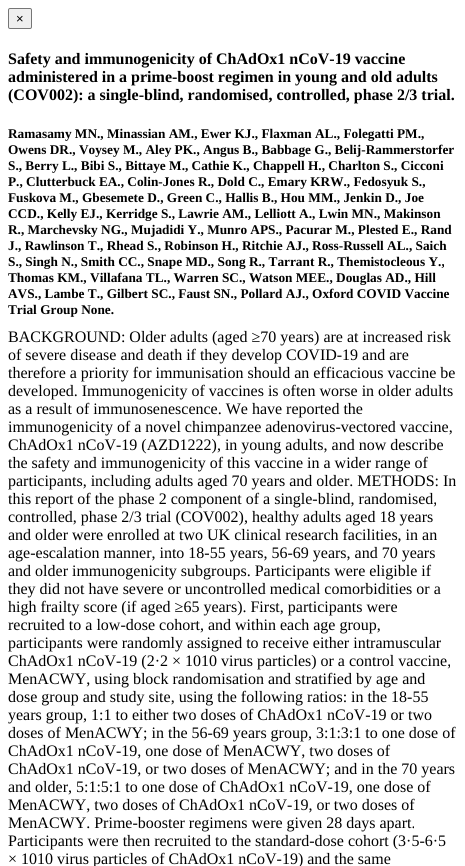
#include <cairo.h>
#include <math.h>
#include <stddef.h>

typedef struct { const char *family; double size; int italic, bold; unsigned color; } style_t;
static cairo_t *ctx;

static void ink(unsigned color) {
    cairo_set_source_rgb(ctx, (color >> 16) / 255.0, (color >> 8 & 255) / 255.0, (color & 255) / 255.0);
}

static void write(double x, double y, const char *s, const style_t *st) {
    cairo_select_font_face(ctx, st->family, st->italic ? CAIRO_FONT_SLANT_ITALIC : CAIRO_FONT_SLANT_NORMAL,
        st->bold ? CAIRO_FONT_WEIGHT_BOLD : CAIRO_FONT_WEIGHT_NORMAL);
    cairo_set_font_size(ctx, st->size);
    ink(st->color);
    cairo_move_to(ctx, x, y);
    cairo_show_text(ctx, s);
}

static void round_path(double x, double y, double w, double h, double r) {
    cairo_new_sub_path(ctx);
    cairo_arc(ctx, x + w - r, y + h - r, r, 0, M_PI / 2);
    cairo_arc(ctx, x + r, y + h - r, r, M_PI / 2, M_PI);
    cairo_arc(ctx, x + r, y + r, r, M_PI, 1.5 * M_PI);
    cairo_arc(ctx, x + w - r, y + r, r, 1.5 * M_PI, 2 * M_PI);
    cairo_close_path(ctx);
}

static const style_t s1 = {"Liberation Sans", 13, 0, 0, 0x000000};
static const style_t s2 = {"Liberation Serif", 16, 0, 1, 0x000000};
static const style_t s3 = {"Liberation Serif", 13.3, 0, 1, 0x000000};
static const style_t s4 = {"Liberation Serif", 16, 0, 0, 0x000000};

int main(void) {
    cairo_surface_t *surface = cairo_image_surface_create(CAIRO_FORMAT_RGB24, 465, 866);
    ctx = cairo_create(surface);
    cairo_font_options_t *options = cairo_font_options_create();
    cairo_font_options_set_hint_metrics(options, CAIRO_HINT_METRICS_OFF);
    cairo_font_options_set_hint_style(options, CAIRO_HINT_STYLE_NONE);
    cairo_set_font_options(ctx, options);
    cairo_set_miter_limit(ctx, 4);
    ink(0xffffff);
    cairo_paint(ctx);
    ink(0xefefef);
    round_path(8.5, 8.5, 23, 20, 1.5);
    cairo_fill_preserve(ctx);
    ink(0x767676);
    cairo_set_line_width(ctx, 1);
    cairo_stroke(ctx);
    write(16, 23, "×", &s1);
    write(8, 64, "Safety and immunogenicity of ChAdOx1 nCoV-19 vaccine", &s2);
    write(8, 82, "administered in a prime-boost regimen in young and old adults", &s2);
    write(8, 100, "(COV002): a single-blind, randomised, controlled, phase 2/3 trial.", &s2);
    write(8, 138, "Ramasamy MN., Minassian AM., Ewer KJ., Flaxman AL., Folegatti PM.,", &s3);
    write(8, 154, "Owens DR., Voysey M., Aley PK., Angus B., Babbage G., Belij-Rammerstorfer", &s3);
    write(8, 170, "S., Berry L., Bibi S., Bittaye M., Cathie K., Chappell H., Charlton S., Cicconi", &s3);
    write(8, 186, "P., Clutterbuck EA., Colin-Jones R., Dold C., Emary KRW., Fedosyuk S.,", &s3);
    write(8, 202, "Fuskova M., Gbesemete D., Green C., Hallis B., Hou MM., Jenkin D., Joe", &s3);
    write(8, 218, "CCD., Kelly EJ., Kerridge S., Lawrie AM., Lelliott A., Lwin MN., Makinson", &s3);
    write(8, 234, "R., Marchevsky NG., Mujadidi Y., Munro APS., Pacurar M., Plested E., Rand", &s3);
    write(8, 250, "J., Rawlinson T., Rhead S., Robinson H., Ritchie AJ., Ross-Russell AL., Saich", &s3);
    write(8, 266, "S., Singh N., Smith CC., Snape MD., Song R., Tarrant R., Themistocleous Y.,", &s3);
    write(8, 282, "Thomas KM., Villafana TL., Warren SC., Watson MEE., Douglas AD., Hill", &s3);
    write(8, 298, "AVS., Lambe T., Gilbert SC., Faust SN., Pollard AJ., Oxford COVID Vaccine", &s3);
    write(8, 314, "Trial Group None.", &s3);
    write(8, 342, "BACKGROUND: Older adults (aged ≥70 years) are at increased risk", &s4);
    write(8, 360, "of severe disease and death if they develop COVID-19 and are", &s4);
    write(8, 378, "therefore a priority for immunisation should an efficacious vaccine be", &s4);
    write(8, 396, "developed. Immunogenicity of vaccines is often worse in older adults", &s4);
    write(8, 414, "as a result of immunosenescence. We have reported the", &s4);
    write(8, 432, "immunogenicity of a novel chimpanzee adenovirus-vectored vaccine,", &s4);
    write(8, 450, "ChAdOx1 nCoV-19 (AZD1222), in young adults, and now describe", &s4);
    write(8, 468, "the safety and immunogenicity of this vaccine in a wider range of", &s4);
    write(8, 486, "participants, including adults aged 70 years and older. METHODS: In", &s4);
    write(8, 504, "this report of the phase 2 component of a single-blind, randomised,", &s4);
    write(8, 522, "controlled, phase 2/3 trial (COV002), healthy adults aged 18 years", &s4);
    write(8, 540, "and older were enrolled at two UK clinical research facilities, in an", &s4);
    write(8, 558, "age-escalation manner, into 18-55 years, 56-69 years, and 70 years", &s4);
    write(8, 576, "and older immunogenicity subgroups. Participants were eligible if", &s4);
    write(8, 594, "they did not have severe or uncontrolled medical comorbidities or a", &s4);
    write(8, 612, "high frailty score (if aged ≥65 years). First, participants were", &s4);
    write(8, 630, "recruited to a low-dose cohort, and within each age group,", &s4);
    write(8, 648, "participants were randomly assigned to receive either intramuscular", &s4);
    write(8, 666, "ChAdOx1 nCoV-19 (2·2 × 1010 virus particles) or a control vaccine,", &s4);
    write(8, 684, "MenACWY, using block randomisation and stratified by age and", &s4);
    write(8, 702, "dose group and study site, using the following ratios: in the 18-55", &s4);
    write(8, 720, "years group, 1:1 to either two doses of ChAdOx1 nCoV-19 or two", &s4);
    write(8, 738, "doses of MenACWY; in the 56-69 years group, 3:1:3:1 to one dose of", &s4);
    write(8, 756, "ChAdOx1 nCoV-19, one dose of MenACWY, two doses of", &s4);
    write(8, 774, "ChAdOx1 nCoV-19, or two doses of MenACWY; and in the 70 years", &s4);
    write(8, 792, "and older, 5:1:5:1 to one dose of ChAdOx1 nCoV-19, one dose of", &s4);
    write(8, 810, "MenACWY, two doses of ChAdOx1 nCoV-19, or two doses of", &s4);
    write(8, 828, "MenACWY. Prime-booster regimens were given 28 days apart.", &s4);
    write(8, 846, "Participants were then recruited to the standard-dose cohort (3·5-6·5", &s4);
    write(8, 864, "× 1010 virus particles of ChAdOx1 nCoV-19) and the same", &s4);
    cairo_surface_write_to_png(surface, "screenshot.png");
    cairo_font_options_destroy(options);
    cairo_destroy(ctx);
    cairo_surface_destroy(surface);
    return 0;
}
